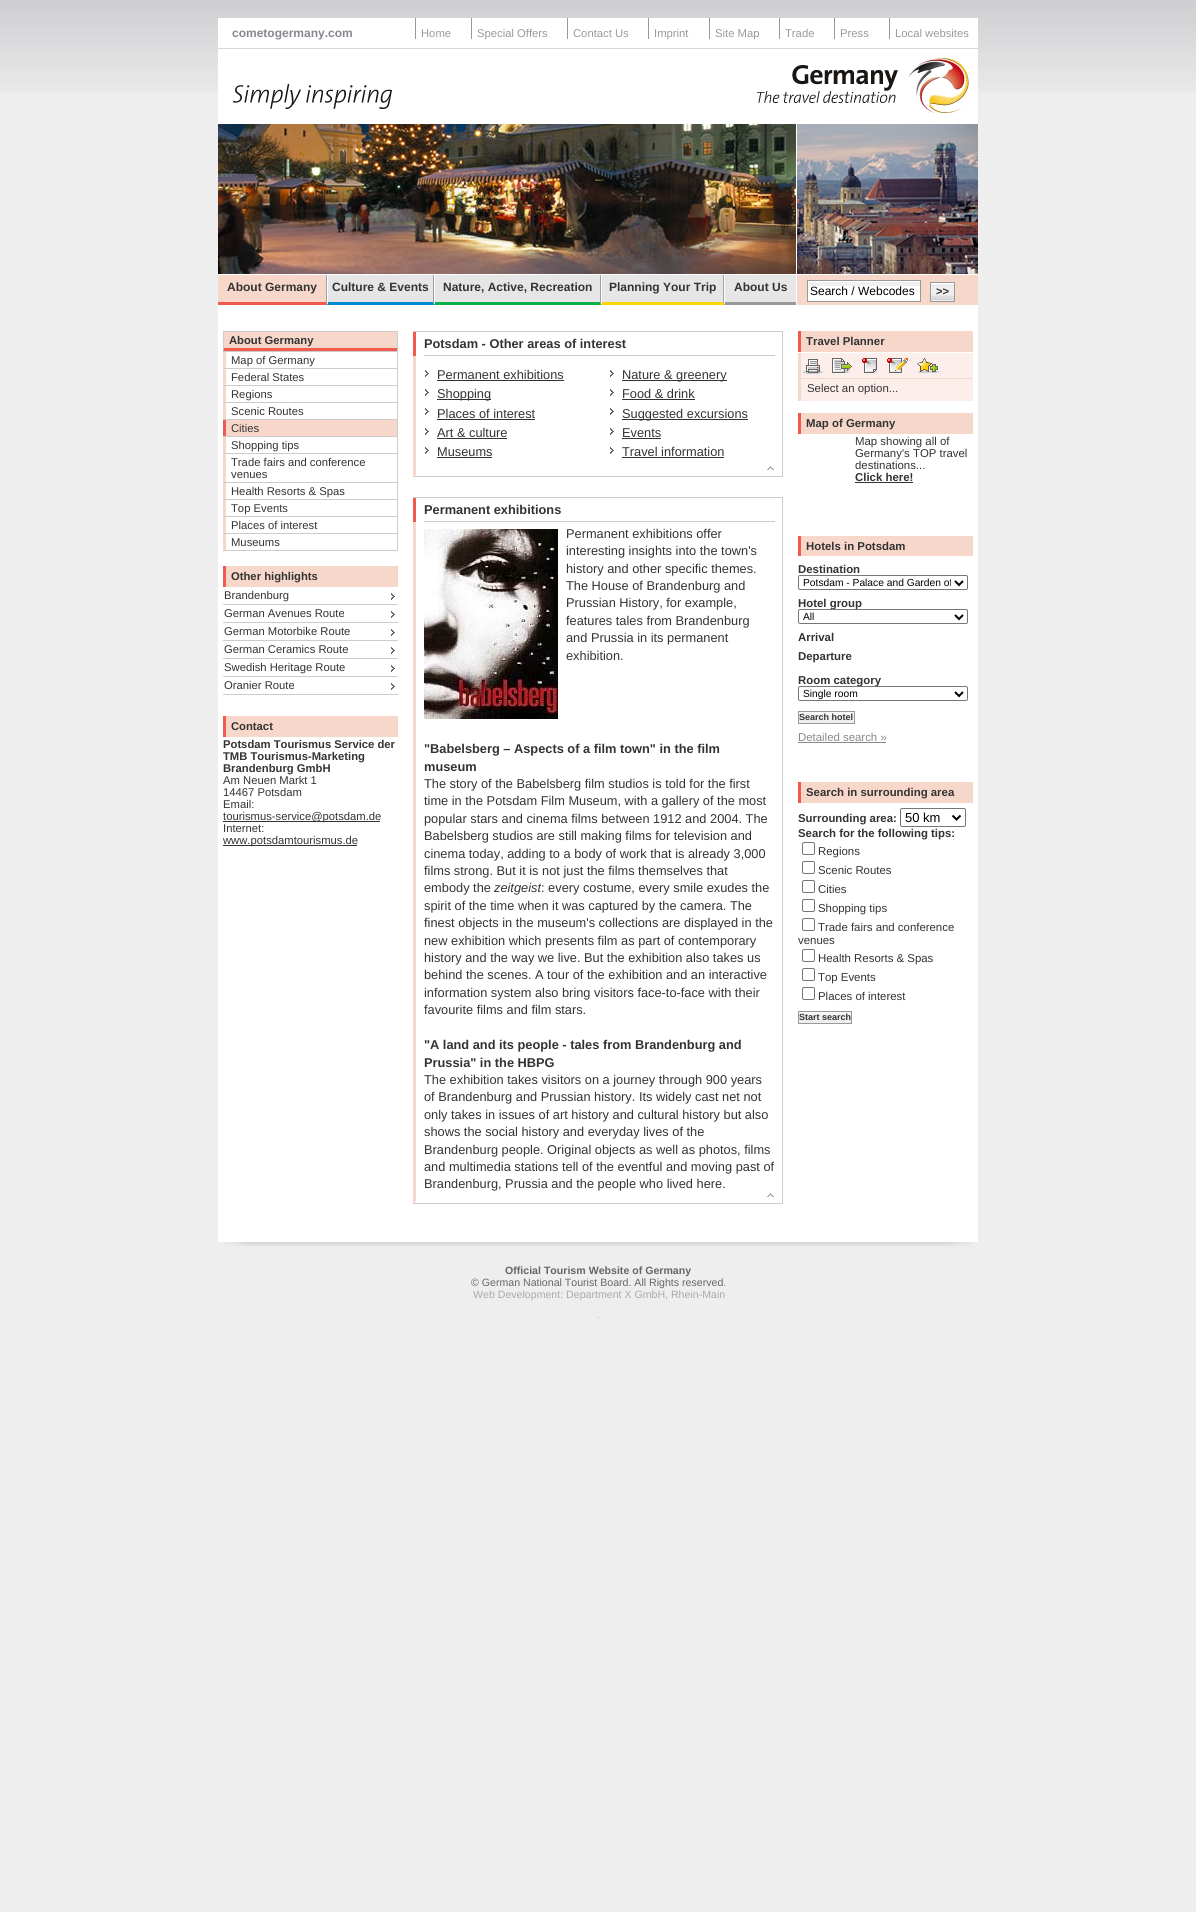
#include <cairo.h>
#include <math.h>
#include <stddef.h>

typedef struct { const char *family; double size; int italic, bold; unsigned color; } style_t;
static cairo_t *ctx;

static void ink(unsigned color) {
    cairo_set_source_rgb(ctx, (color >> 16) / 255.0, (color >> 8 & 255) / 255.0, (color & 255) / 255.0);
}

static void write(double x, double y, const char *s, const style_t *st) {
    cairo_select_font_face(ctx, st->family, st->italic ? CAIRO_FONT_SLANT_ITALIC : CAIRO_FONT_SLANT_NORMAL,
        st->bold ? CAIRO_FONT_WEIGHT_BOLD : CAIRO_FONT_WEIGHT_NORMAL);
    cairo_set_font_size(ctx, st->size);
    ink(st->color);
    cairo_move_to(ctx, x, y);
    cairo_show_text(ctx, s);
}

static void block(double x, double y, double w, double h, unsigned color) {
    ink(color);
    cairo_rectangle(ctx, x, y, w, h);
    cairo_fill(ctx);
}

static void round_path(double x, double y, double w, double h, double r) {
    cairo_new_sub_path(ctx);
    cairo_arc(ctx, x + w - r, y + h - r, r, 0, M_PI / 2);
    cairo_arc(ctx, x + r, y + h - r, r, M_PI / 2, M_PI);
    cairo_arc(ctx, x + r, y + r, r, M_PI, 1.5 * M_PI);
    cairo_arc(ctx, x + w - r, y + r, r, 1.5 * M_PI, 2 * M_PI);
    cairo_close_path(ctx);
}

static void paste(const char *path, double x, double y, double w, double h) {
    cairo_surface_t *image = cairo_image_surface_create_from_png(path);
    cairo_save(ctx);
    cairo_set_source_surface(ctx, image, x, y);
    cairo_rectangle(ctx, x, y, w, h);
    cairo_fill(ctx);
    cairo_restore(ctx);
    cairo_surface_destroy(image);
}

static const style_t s1 = {"Liberation Sans", 12, 0, 1, 0x86878f};
static const style_t s2 = {"Liberation Sans", 11.25, 0, 0, 0x999999};
static const style_t s3 = {"Liberation Sans", 12, 0, 1, 0x333333};
static const style_t s4 = {"Liberation Sans", 12, 0, 0, 0x000000};
static const style_t s5 = {"Liberation Sans", 11.25, 0, 1, 0x333333};
static const style_t s6 = {"Liberation Sans", 11.25, 0, 0, 0x333333};
static const style_t s7 = {"Liberation Sans", 12.8, 0, 1, 0x333333};
static const style_t s8 = {"Liberation Sans", 12.8, 0, 0, 0x333333};
static const style_t s9 = {"Liberation Sans", 12.8, 1, 0, 0x333333};
static const style_t s10 = {"Liberation Sans", 11.4, 0, 1, 0x333333};
static const style_t s11 = {"Liberation Sans", 11.4, 0, 0, 0x333333};
static const style_t s12 = {"Liberation Sans", 10.25, 0, 0, 0x000000};
static const style_t s13 = {"Liberation Sans", 9, 0, 1, 0x333333};
static const style_t s14 = {"Liberation Sans", 11.4, 0, 0, 0x888888};
static const style_t s15 = {"Liberation Sans", 13, 0, 0, 0x000000};
static const style_t s16 = {"Liberation Sans", 10.6, 0, 1, 0x666666};
static const style_t s17 = {"Liberation Sans", 10.6, 0, 0, 0x666666};
static const style_t s18 = {"Liberation Sans", 10.6, 0, 0, 0xaaaaaa};

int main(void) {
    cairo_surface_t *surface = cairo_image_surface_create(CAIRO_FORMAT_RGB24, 1196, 1912);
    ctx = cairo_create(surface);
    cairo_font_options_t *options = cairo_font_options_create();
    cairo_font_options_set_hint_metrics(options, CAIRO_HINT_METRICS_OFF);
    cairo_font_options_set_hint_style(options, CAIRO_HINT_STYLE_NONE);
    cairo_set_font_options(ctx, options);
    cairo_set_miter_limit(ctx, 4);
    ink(0xeeeeee);
    cairo_paint(ctx);
    paste("pic1.png", 0, 0, 1196, 92);
    block(218, 18, 760, 1224, 0xffffff);
    block(218, 48, 760, 1, 0xd7d7da);
    write(232, 37, "cometogermany.com", &s1);
    block(415, 18, 1, 21, 0x999999);
    write(421, 37, "Home", &s2);
    block(471, 18, 1, 21, 0x999999);
    write(477, 37, "Special Offers", &s2);
    block(567, 18, 1, 21, 0x999999);
    write(573, 37, "Contact Us", &s2);
    block(648, 18, 1, 21, 0x999999);
    write(654, 37, "Imprint", &s2);
    block(709, 18, 1, 21, 0x999999);
    write(715, 37, "Site Map", &s2);
    block(779, 18, 1, 21, 0x999999);
    write(785, 37, "Trade", &s2);
    block(834, 18, 1, 21, 0x999999);
    write(840, 37, "Press", &s2);
    block(889, 18, 1, 21, 0x999999);
    write(895, 37, "Local websites", &s2);
    paste("pic2.png", 233, 57, 737, 56);
    paste("pic3.png", 218, 124, 578, 150);
    paste("pic4.png", 797, 124, 181, 150);
    block(326, 275, 470, 30, 0xe7e6e6);
    ink(0xa1a1a1);
    cairo_new_path(ctx);
    cairo_move_to(ctx, 327, 275);
    cairo_line_to(ctx, 327, 305);
    cairo_line_to(ctx, 326, 302);
    cairo_line_to(ctx, 326, 275);
    cairo_close_path(ctx);
    cairo_fill(ctx);
    ink(0xf15b4e);
    cairo_new_path(ctx);
    cairo_move_to(ctx, 327, 305);
    cairo_line_to(ctx, 218, 305);
    cairo_line_to(ctx, 218, 302);
    cairo_line_to(ctx, 326, 302);
    cairo_close_path(ctx);
    cairo_fill(ctx);
    block(218, 275, 108, 27, 0xf8d7cb);
    write(227, 291, "About Germany", &s3);
    ink(0xa1a1a1);
    cairo_new_path(ctx);
    cairo_move_to(ctx, 434, 275);
    cairo_line_to(ctx, 434, 305);
    cairo_line_to(ctx, 433, 302);
    cairo_line_to(ctx, 433, 275);
    cairo_close_path(ctx);
    cairo_fill(ctx);
    ink(0x0089cf);
    cairo_new_path(ctx);
    cairo_move_to(ctx, 434, 305);
    cairo_line_to(ctx, 327, 305);
    cairo_line_to(ctx, 328, 302);
    cairo_line_to(ctx, 433, 302);
    cairo_close_path(ctx);
    cairo_fill(ctx);
    ink(0xffffff);
    cairo_new_path(ctx);
    cairo_move_to(ctx, 327, 305);
    cairo_line_to(ctx, 327, 275);
    cairo_line_to(ctx, 328, 275);
    cairo_line_to(ctx, 328, 302);
    cairo_close_path(ctx);
    cairo_fill(ctx);
    write(332, 291, "Culture & Events", &s3);
    ink(0xa1a1a1);
    cairo_new_path(ctx);
    cairo_move_to(ctx, 601, 275);
    cairo_line_to(ctx, 601, 305);
    cairo_line_to(ctx, 600, 302);
    cairo_line_to(ctx, 600, 275);
    cairo_close_path(ctx);
    cairo_fill(ctx);
    ink(0x0db14b);
    cairo_new_path(ctx);
    cairo_move_to(ctx, 601, 305);
    cairo_line_to(ctx, 434, 305);
    cairo_line_to(ctx, 435, 302);
    cairo_line_to(ctx, 600, 302);
    cairo_close_path(ctx);
    cairo_fill(ctx);
    ink(0xffffff);
    cairo_new_path(ctx);
    cairo_move_to(ctx, 434, 305);
    cairo_line_to(ctx, 434, 275);
    cairo_line_to(ctx, 435, 275);
    cairo_line_to(ctx, 435, 302);
    cairo_close_path(ctx);
    cairo_fill(ctx);
    write(443, 291, "Nature, Active, Recreation", &s3);
    ink(0xa1a1a1);
    cairo_new_path(ctx);
    cairo_move_to(ctx, 724, 275);
    cairo_line_to(ctx, 724, 305);
    cairo_line_to(ctx, 723, 302);
    cairo_line_to(ctx, 723, 275);
    cairo_close_path(ctx);
    cairo_fill(ctx);
    ink(0xffd400);
    cairo_new_path(ctx);
    cairo_move_to(ctx, 724, 305);
    cairo_line_to(ctx, 601, 305);
    cairo_line_to(ctx, 602, 302);
    cairo_line_to(ctx, 723, 302);
    cairo_close_path(ctx);
    cairo_fill(ctx);
    ink(0xffffff);
    cairo_new_path(ctx);
    cairo_move_to(ctx, 601, 305);
    cairo_line_to(ctx, 601, 275);
    cairo_line_to(ctx, 602, 275);
    cairo_line_to(ctx, 602, 302);
    cairo_close_path(ctx);
    cairo_fill(ctx);
    write(609, 291, "Planning Your Trip", &s3);
    ink(0x999999);
    cairo_new_path(ctx);
    cairo_move_to(ctx, 796, 305);
    cairo_line_to(ctx, 724, 305);
    cairo_line_to(ctx, 725, 302);
    cairo_line_to(ctx, 796, 302);
    cairo_close_path(ctx);
    cairo_fill(ctx);
    ink(0xffffff);
    cairo_new_path(ctx);
    cairo_move_to(ctx, 724, 305);
    cairo_line_to(ctx, 724, 275);
    cairo_line_to(ctx, 725, 275);
    cairo_line_to(ctx, 725, 302);
    cairo_close_path(ctx);
    cairo_fill(ctx);
    write(734, 291, "About Us", &s3);
    block(797, 275, 181, 30, 0xf8d7cb);
    block(808, 281, 112, 20, 0xffffff);
    block(809, 282, 112, 4, 0xf0f0f0);
    cairo_rectangle(ctx, 807.5, 280.5, 113, 21);
    ink(0x999999);
    cairo_set_line_width(ctx, 1);
    cairo_stroke(ctx);
    write(810, 295, "Search / Webcodes", &s4);
    block(931, 300, 23, 1, 0xefefef);
    paste("pic5.png", 931, 283, 23, 17);
    cairo_rectangle(ctx, 930.5, 282.5, 24, 19);
    ink(0x999999);
    cairo_stroke(ctx);
    write(936, 295, ">>", &s5);
    block(397, 331, 1, 220, 0xcccccc);
    block(223, 550, 175, 1, 0xcccccc);
    block(223, 331, 174, 1, 0xcccccc);
    block(223, 332, 174, 19, 0xf8d7cb);
    ink(0xf15b4e);
    cairo_new_path(ctx);
    cairo_move_to(ctx, 397, 351);
    cairo_line_to(ctx, 223, 351);
    cairo_line_to(ctx, 224, 348);
    cairo_line_to(ctx, 397, 348);
    cairo_close_path(ctx);
    cairo_fill(ctx);
    ink(0xcccccc);
    cairo_new_path(ctx);
    cairo_move_to(ctx, 223, 351);
    cairo_line_to(ctx, 223, 332);
    cairo_line_to(ctx, 224, 332);
    cairo_line_to(ctx, 224, 348);
    cairo_close_path(ctx);
    cairo_fill(ctx);
    write(229, 344, "About Germany", &s5);
    block(223, 351, 174, 1, 0xcccccc);
    block(223, 352, 3, 16, 0xf8d7cb);
    write(231, 364, "Map of Germany", &s6);
    block(223, 368, 174, 1, 0xcccccc);
    block(223, 369, 3, 16, 0xf8d7cb);
    write(231, 381, "Federal States", &s6);
    block(223, 385, 174, 1, 0xcccccc);
    block(223, 386, 3, 16, 0xf8d7cb);
    write(231, 398, "Regions", &s6);
    block(223, 402, 174, 1, 0xcccccc);
    block(223, 403, 3, 16, 0xf8d7cb);
    write(231, 415, "Scenic Routes", &s6);
    block(223, 419, 174, 1, 0xcccccc);
    block(226, 420, 171, 16, 0xf8d7cb);
    block(223, 420, 3, 16, 0xf15b4e);
    write(231, 432, "Cities", &s6);
    block(223, 436, 174, 1, 0xcccccc);
    block(223, 437, 3, 16, 0xf8d7cb);
    write(231, 449, "Shopping tips", &s6);
    block(223, 453, 174, 1, 0xcccccc);
    block(223, 454, 3, 28, 0xf8d7cb);
    write(231, 466, "Trade fairs and conference", &s6);
    write(231, 478, "venues", &s6);
    block(223, 482, 174, 1, 0xcccccc);
    block(223, 483, 3, 16, 0xf8d7cb);
    write(231, 495, "Health Resorts & Spas", &s6);
    block(223, 499, 174, 1, 0xcccccc);
    block(223, 500, 3, 16, 0xf8d7cb);
    write(231, 512, "Top Events", &s6);
    block(223, 516, 174, 1, 0xcccccc);
    block(223, 517, 3, 16, 0xf8d7cb);
    write(231, 529, "Places of interest", &s6);
    block(223, 533, 174, 1, 0xcccccc);
    block(223, 534, 3, 16, 0xf8d7cb);
    write(231, 546, "Museums", &s6);
    block(226, 566, 172, 21, 0xf8d7cb);
    block(223, 566, 3, 21, 0xf15b4e);
    write(231, 580, "Other highlights", &s5);
    block(223, 604, 175, 1, 0xcccccc);
    paste("pic6.png", 391, 593, 4, 7);
    write(224, 599, "Brandenburg", &s6);
    block(223, 622, 175, 1, 0xcccccc);
    paste("pic7.png", 391, 611, 4, 7);
    write(224, 617, "German Avenues Route", &s6);
    block(223, 640, 175, 1, 0xcccccc);
    paste("pic7.png", 391, 629, 4, 7);
    write(224, 635, "German Motorbike Route", &s6);
    block(223, 658, 175, 1, 0xcccccc);
    paste("pic7.png", 391, 647, 4, 7);
    write(224, 653, "German Ceramics Route", &s6);
    block(223, 676, 175, 1, 0xcccccc);
    paste("pic7.png", 391, 665, 4, 7);
    write(224, 671, "Swedish Heritage Route", &s6);
    block(223, 694, 175, 1, 0xcccccc);
    paste("pic7.png", 391, 683, 4, 7);
    write(224, 689, "Oranier Route", &s6);
    block(226, 716, 172, 21, 0xf8d7cb);
    block(223, 716, 3, 21, 0xf15b4e);
    write(231, 730, "Contact", &s5);
    write(223, 748, "Potsdam Tourismus Service der", &s5);
    write(223, 760, "TMB Tourismus-Marketing", &s5);
    write(223, 772, "Brandenburg GmbH", &s5);
    write(223, 784, "Am Neuen Markt 1", &s6);
    write(223, 796, "14467 Potsdam", &s6);
    write(223, 808, "Email:", &s6);
    block(223, 821, 157, 1, 0x333333);
    write(223, 820, "tourismus-service@potsdam.de", &s6);
    write(223, 832, "Internet:", &s6);
    block(223, 845, 134, 1, 0x333333);
    write(223, 844, "www.potsdamtourismus.de", &s6);
    block(413, 331, 370, 1, 0xcccccc);
    block(782, 331, 1, 146, 0xcccccc);
    block(413, 476, 370, 1, 0xcccccc);
    block(424, 355, 351, 1, 0xcccccc);
    block(413, 332, 3, 24, 0xf15b4e);
    write(424, 348, "Potsdam - Other areas of interest", &s7);
    ink(0xf8d7cb);
    cairo_new_path(ctx);
    cairo_move_to(ctx, 413, 476);
    cairo_line_to(ctx, 413, 356);
    cairo_line_to(ctx, 416, 356);
    cairo_line_to(ctx, 416, 475);
    cairo_close_path(ctx);
    cairo_fill(ctx);
    paste("pic8.png", 425, 370, 4, 7);
    write(437, 379, "Permanent exhibitions", &s8);
    block(437, 380, 127, 1, 0x333333);
    paste("pic8.png", 425, 389, 4, 7);
    block(437, 399, 54, 1, 0x333333);
    write(437, 398, "Shopping", &s8);
    paste("pic8.png", 425, 408, 4, 7);
    write(437, 418, "Places of interest", &s8);
    block(437, 419, 98, 1, 0x333333);
    paste("pic8.png", 425, 428, 4, 7);
    write(437, 437, "Art & culture", &s8);
    block(437, 438, 70, 1, 0x333333);
    paste("pic8.png", 425, 447, 4, 7);
    write(437, 456, "Museums", &s8);
    block(437, 457, 55, 1, 0x333333);
    paste("pic8.png", 610, 370, 4, 7);
    block(622, 380, 105, 1, 0x333333);
    write(622, 379, "Nature & greenery", &s8);
    paste("pic8.png", 610, 389, 4, 7);
    write(622, 398, "Food & drink", &s8);
    block(622, 399, 73, 1, 0x333333);
    paste("pic8.png", 610, 408, 4, 7);
    block(622, 419, 126, 1, 0x333333);
    write(622, 418, "Suggested excursions", &s8);
    paste("pic8.png", 610, 428, 4, 7);
    write(622, 437, "Events", &s8);
    block(622, 438, 39, 1, 0x333333);
    paste("pic8.png", 610, 447, 4, 7);
    write(622, 456, "Travel information", &s8);
    block(622, 457, 102, 1, 0x333333);
    paste("pic9.png", 767, 466, 7, 4);
    block(413, 497, 370, 1, 0xcccccc);
    block(782, 497, 1, 707, 0xcccccc);
    block(413, 1203, 370, 1, 0xcccccc);
    block(424, 521, 351, 1, 0xcccccc);
    block(413, 498, 3, 24, 0xf15b4e);
    write(424, 514, "Permanent exhibitions", &s7);
    ink(0xf8d7cb);
    cairo_new_path(ctx);
    cairo_move_to(ctx, 413, 1203);
    cairo_line_to(ctx, 413, 522);
    cairo_line_to(ctx, 416, 522);
    cairo_line_to(ctx, 416, 1202);
    cairo_close_path(ctx);
    cairo_fill(ctx);
    paste("pic10.png", 424, 529, 134, 190);
    write(566, 538, "Permanent exhibitions offer", &s8);
    write(566, 555, "interesting insights into the town's", &s8);
    write(566, 573, "history and other specific themes.", &s8);
    write(566, 590, "The House of Brandenburg and", &s8);
    write(566, 607, "Prussian History, for example,", &s8);
    write(566, 625, "features tales from Brandenburg", &s8);
    write(566, 642, "and Prussia in its permanent", &s8);
    write(566, 660, "exhibition.", &s8);
    write(424, 753, "\"Babelsberg – Aspects of a film town\" in the film", &s7);
    write(424, 771, "museum", &s7);
    write(424, 788, "The story of the Babelsberg film studios is told for the first", &s8);
    write(424, 805, "time in the Potsdam Film Museum, with a gallery of the most", &s8);
    write(424, 823, "popular stars and cinema films between 1912 and 2004. The", &s8);
    write(424, 840, "Babelsberg studios are still making films for television and", &s8);
    write(424, 858, "cinema today, adding to a body of work that is already 3,000", &s8);
    write(424, 875, "films strong. But it is not just the films themselves that", &s8);
    write(424, 892, "embody the", &s8);
    write(494, 892, "zeitgeist", &s9);
    write(541, 892, ": every costume, every smile exudes the", &s8);
    write(424, 910, "spirit of the time when it was captured by the camera. The", &s8);
    write(424, 927, "finest objects in the museum's collections are displayed in the", &s8);
    write(424, 945, "new exhibition which presents film as part of contemporary", &s8);
    write(424, 962, "history and the way we live. But the exhibition also takes us", &s8);
    write(424, 979, "behind the scenes. A tour of the exhibition and an interactive", &s8);
    write(424, 997, "information system also bring visitors face-to-face with their", &s8);
    write(424, 1014, "favourite films and film stars.", &s8);
    write(424, 1049, "\"A land and its people - tales from Brandenburg and", &s7);
    write(424, 1067, "Prussia\" in the HBPG", &s7);
    write(424, 1084, "The exhibition takes visitors on a journey through 900 years", &s8);
    write(424, 1101, "of Brandenburg and Prussian history. Its widely cast net not", &s8);
    write(424, 1119, "only takes in issues of art history and cultural history but also", &s8);
    write(424, 1136, "shows the social history and everyday lives of the", &s8);
    write(424, 1154, "Brandenburg people. Original objects as well as photos, films", &s8);
    write(424, 1171, "and multimedia stations tell of the eventful and moving past of", &s8);
    write(424, 1188, "Brandenburg, Prussia and the people who lived here.", &s8);
    paste("pic9.png", 767, 1193, 7, 4);
    block(801, 331, 172, 21, 0xf8d7cb);
    block(798, 331, 3, 21, 0xf15b4e);
    write(806, 345, "Travel Planner", &s10);
    block(801, 353, 172, 25, 0xfcefeb);
    block(798, 353, 3, 25, 0xf8d7cb);
    paste("pic11.png", 803, 359, 20, 15);
    paste("pic12.png", 832, 358, 20, 15);
    paste("pic13.png", 862, 358, 15, 15);
    paste("pic14.png", 887, 358, 21, 15);
    paste("pic15.png", 917, 358, 22, 15);
    block(801, 379, 172, 22, 0xfcefeb);
    block(798, 378, 175, 1, 0xf8d7cb);
    block(798, 378, 3, 23, 0xf8d7cb);
    write(807, 392, "Select an option...", &s11);
    block(801, 413, 172, 21, 0xf8d7cb);
    block(798, 413, 3, 21, 0xf15b4e);
    write(806, 427, "Map of Germany", &s10);
    write(855, 445, "Map showing all of", &s11);
    write(855, 457, "Germany's TOP travel", &s11);
    write(855, 469, "destinations...", &s11);
    write(855, 481, "Click here!", &s10);
    block(855, 482, 58, 1, 0x333333);
    block(801, 536, 172, 20, 0xf8d7cb);
    block(798, 536, 3, 20, 0xf15b4e);
    write(806, 550, "Hotels in Potsdam", &s10);
    write(798, 573, "Destination", &s10);
    round_path(798.5, 575.5, 169, 14, 1.5);
    ink(0x767676);
    cairo_stroke(ctx);
    cairo_new_path(ctx);
    cairo_move_to(ctx, 955, 581);
    cairo_line_to(ctx, 959, 585);
    cairo_line_to(ctx, 963, 581);
    ink(0x000000);
    cairo_set_line_width(ctx, 2);
    cairo_stroke(ctx);
    cairo_save(ctx);
    cairo_rectangle(ctx, 803, 576, 148, 13);
    cairo_clip(ctx);
    write(803, 586, "Potsdam - Palace and Garden of", &s12);
    cairo_restore(ctx);
    write(798, 607, "Hotel group", &s10);
    ink(0xffffff);
    round_path(798.5, 609.5, 169, 14, 1.5);
    cairo_fill_preserve(ctx);
    ink(0x767676);
    cairo_set_line_width(ctx, 1);
    cairo_stroke(ctx);
    cairo_new_path(ctx);
    cairo_move_to(ctx, 955, 615);
    cairo_line_to(ctx, 959, 619);
    cairo_line_to(ctx, 963, 615);
    ink(0x000000);
    cairo_set_line_width(ctx, 2);
    cairo_stroke(ctx);
    write(803, 620, "All", &s12);
    write(798, 641, "Arrival", &s10);
    write(798, 660, "Departure", &s10);
    write(798, 684, "Room category", &s10);
    ink(0xffffff);
    round_path(798.5, 686.5, 169, 14, 1.5);
    cairo_fill_preserve(ctx);
    ink(0x767676);
    cairo_set_line_width(ctx, 1);
    cairo_stroke(ctx);
    cairo_new_path(ctx);
    cairo_move_to(ctx, 955, 692);
    cairo_line_to(ctx, 959, 696);
    cairo_line_to(ctx, 963, 692);
    ink(0x000000);
    cairo_set_line_width(ctx, 2);
    cairo_stroke(ctx);
    write(803, 697, "Single room", &s12);
    block(799, 715, 55, 8, 0xefefef);
    block(798, 712, 57, 3, 0xf7f7f7);
    cairo_rectangle(ctx, 798.5, 711.5, 56, 12);
    ink(0x999999);
    cairo_set_line_width(ctx, 1);
    cairo_stroke(ctx);
    write(799, 720, "Search hotel", &s13);
    write(798, 741, "Detailed search »", &s14);
    block(798, 742, 88, 1, 0x888888);
    block(801, 782, 172, 21, 0xf8d7cb);
    block(798, 782, 3, 21, 0xf15b4e);
    write(806, 796, "Search in surrounding area", &s10);
    write(798, 822, "Surrounding area:", &s10);
    round_path(900.5, 808.5, 65, 18, 1.5);
    ink(0x767676);
    cairo_stroke(ctx);
    cairo_new_path(ctx);
    cairo_move_to(ctx, 952.5, 815.5);
    cairo_line_to(ctx, 956.5, 819.5);
    cairo_line_to(ctx, 960.5, 815.5);
    ink(0x000000);
    cairo_set_line_width(ctx, 2);
    cairo_stroke(ctx);
    write(905, 822, "50 km", &s15);
    write(798, 837, "Search for the following tips:", &s10);
    round_path(802.5, 842.5, 12, 12, 1.5);
    ink(0x767676);
    cairo_set_line_width(ctx, 1);
    cairo_stroke(ctx);
    write(818, 855, "Regions", &s11);
    round_path(802.5, 861.5, 12, 12, 1.5);
    ink(0x767676);
    cairo_stroke(ctx);
    write(818, 874, "Scenic Routes", &s11);
    round_path(802.5, 880.5, 12, 12, 1.5);
    ink(0x767676);
    cairo_stroke(ctx);
    write(818, 893, "Cities", &s11);
    round_path(802.5, 899.5, 12, 12, 1.5);
    ink(0x767676);
    cairo_stroke(ctx);
    write(818, 912, "Shopping tips", &s11);
    round_path(802.5, 918.5, 12, 12, 1.5);
    ink(0x767676);
    cairo_stroke(ctx);
    write(818, 931, "Trade fairs and conference", &s11);
    write(798, 944, "venues", &s11);
    round_path(802.5, 949.5, 12, 12, 1.5);
    ink(0x767676);
    cairo_stroke(ctx);
    write(818, 962, "Health Resorts & Spas", &s11);
    round_path(802.5, 968.5, 12, 12, 1.5);
    ink(0x767676);
    cairo_stroke(ctx);
    write(818, 981, "Top Events", &s11);
    round_path(802.5, 987.5, 12, 12, 1.5);
    ink(0x767676);
    cairo_stroke(ctx);
    write(818, 1000, "Places of interest", &s11);
    block(799, 1015, 52, 8, 0xefefef);
    block(798, 1012, 54, 3, 0xf7f7f7);
    cairo_rectangle(ctx, 798.5, 1011.5, 53, 12);
    ink(0x999999);
    cairo_stroke(ctx);
    write(799, 1020, "Start search", &s13);
    paste("pic16.png", 224, 1242, 749, 5);
    write(505, 1274, "Official Tourism Website of Germany", &s16);
    write(471, 1286, "© German National Tourist Board. All Rights reserved.", &s17);
    write(473, 1298, "Web Development: Department X GmbH, Rhein-Main", &s18);
    block(598, 1317, 1, 1, 0xb8b8b8);
    cairo_surface_write_to_png(surface, "screenshot.png");
    cairo_font_options_destroy(options);
    cairo_destroy(ctx);
    cairo_surface_destroy(surface);
    return 0;
}
